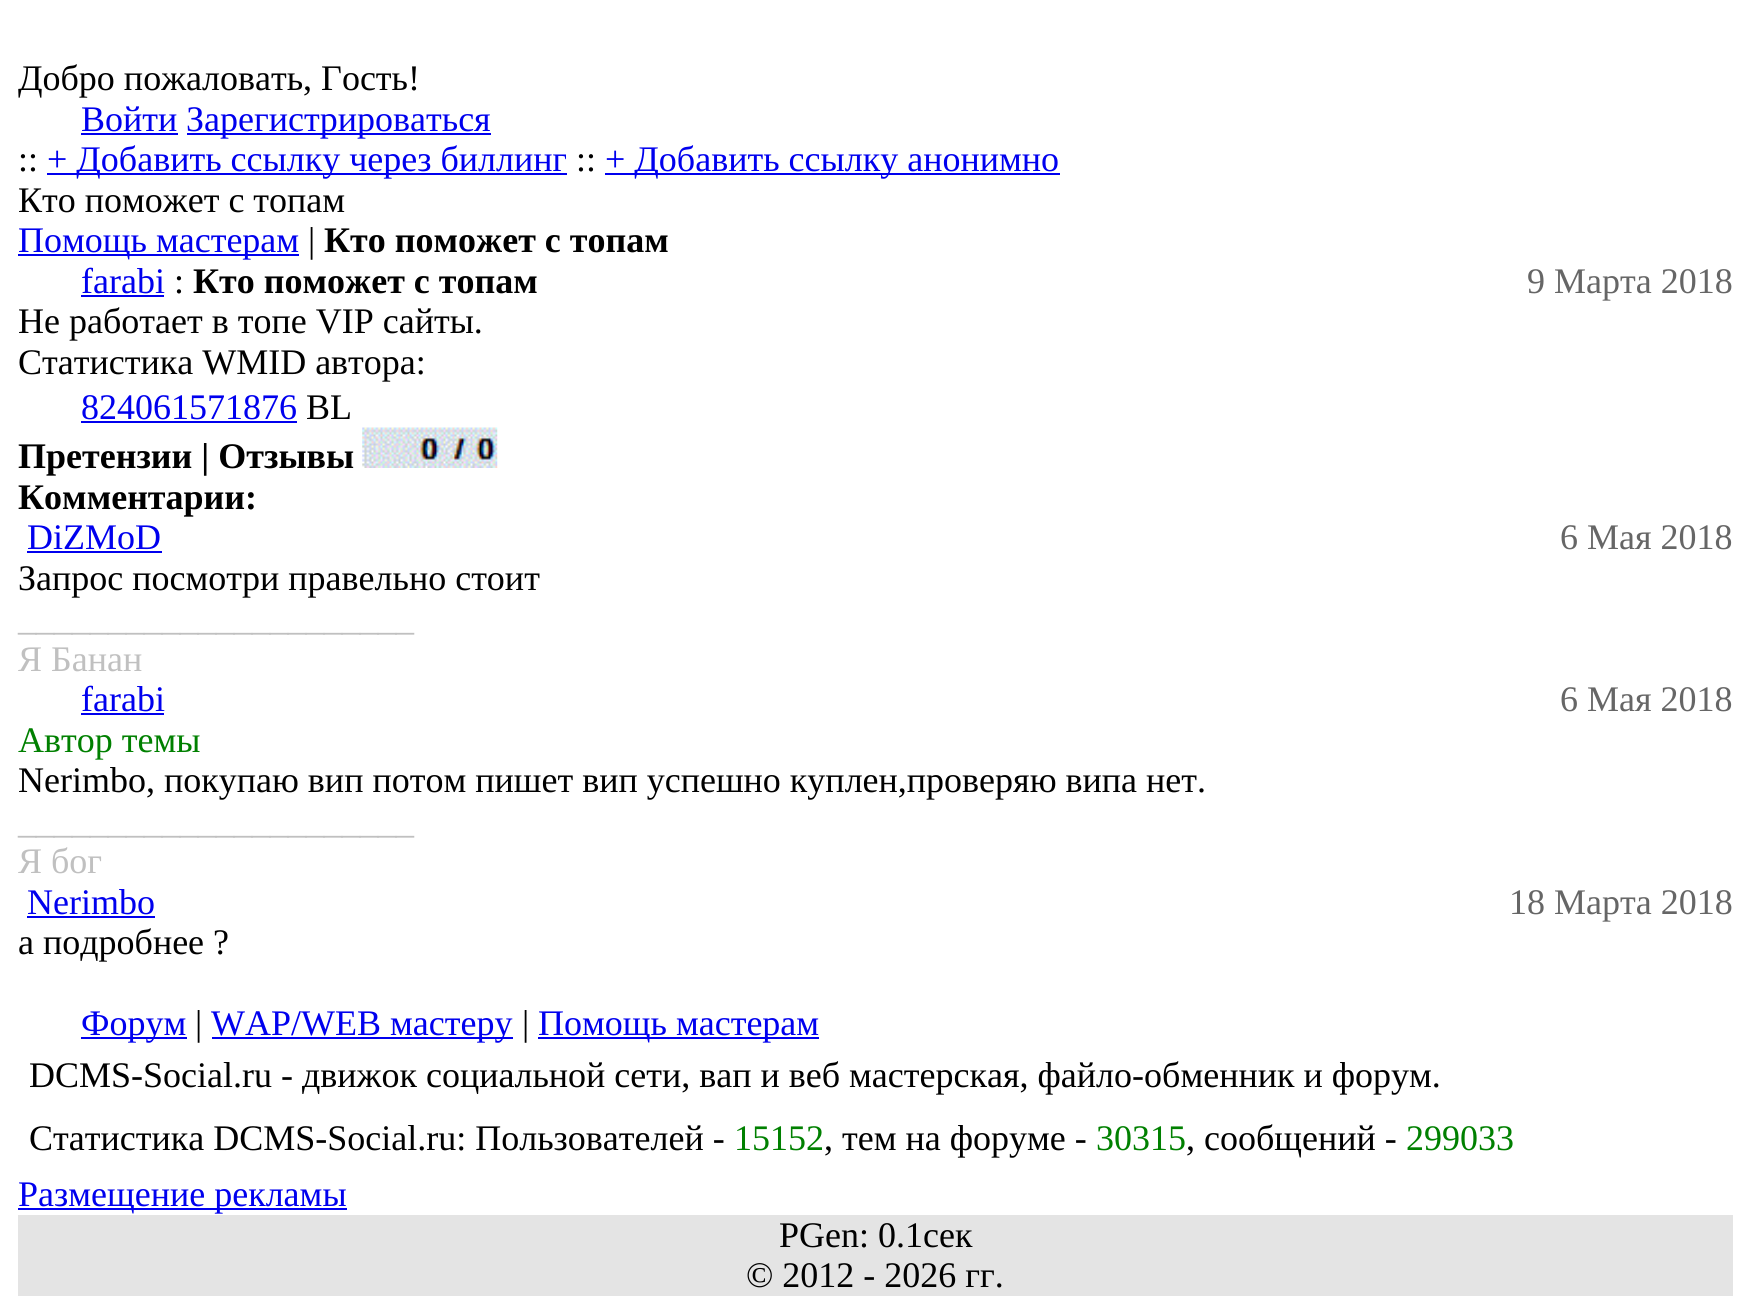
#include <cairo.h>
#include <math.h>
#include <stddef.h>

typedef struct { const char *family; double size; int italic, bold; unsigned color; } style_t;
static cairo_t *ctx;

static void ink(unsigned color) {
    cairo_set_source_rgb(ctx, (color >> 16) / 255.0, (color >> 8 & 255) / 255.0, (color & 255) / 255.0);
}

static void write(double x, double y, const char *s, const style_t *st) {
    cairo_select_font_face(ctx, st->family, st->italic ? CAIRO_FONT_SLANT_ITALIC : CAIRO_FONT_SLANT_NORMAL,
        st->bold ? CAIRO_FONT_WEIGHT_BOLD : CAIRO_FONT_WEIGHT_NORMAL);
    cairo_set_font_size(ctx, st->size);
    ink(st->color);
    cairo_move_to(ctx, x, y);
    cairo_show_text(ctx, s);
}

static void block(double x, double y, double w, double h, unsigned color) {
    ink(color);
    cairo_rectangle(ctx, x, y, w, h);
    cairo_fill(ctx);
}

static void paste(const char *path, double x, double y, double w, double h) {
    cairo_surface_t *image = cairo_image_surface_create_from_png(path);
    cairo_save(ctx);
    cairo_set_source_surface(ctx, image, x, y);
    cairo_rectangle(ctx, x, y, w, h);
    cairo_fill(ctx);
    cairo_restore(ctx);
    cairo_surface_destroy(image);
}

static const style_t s1 = {"Liberation Serif", 36, 0, 0, 0x000000};
static const style_t s2 = {"Liberation Serif", 36, 0, 0, 0x0000ee};
static const style_t s3 = {"Liberation Serif", 36, 0, 1, 0x000000};
static const style_t s4 = {"Liberation Serif", 36, 0, 0, 0x666666};
static const style_t s5 = {"Liberation Serif", 36, 0, 0, 0xc0c0c0};
static const style_t s6 = {"Liberation Serif", 36, 0, 0, 0x008000};

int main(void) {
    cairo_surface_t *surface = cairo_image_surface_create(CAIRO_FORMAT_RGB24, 1750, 1298);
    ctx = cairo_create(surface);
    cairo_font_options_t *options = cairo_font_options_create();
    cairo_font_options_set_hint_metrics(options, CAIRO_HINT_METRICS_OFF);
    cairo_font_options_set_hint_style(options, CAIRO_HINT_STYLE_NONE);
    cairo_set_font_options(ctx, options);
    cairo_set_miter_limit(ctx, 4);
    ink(0xffffff);
    cairo_paint(ctx);
    write(18, 90, "Добро пожаловать, Гость!", &s1);
    write(81, 131, "Войти", &s2);
    block(81, 133, 97, 2, 0x0000ee);
    block(187, 133, 304, 2, 0x0000ee);
    write(186, 131, "Зарегистрироваться", &s2);
    write(18, 171, "::", &s1);
    block(47, 173, 520, 2, 0x0000ee);
    write(47, 171, "+ Добавить ссылку через биллинг", &s2);
    write(576, 171, "::", &s1);
    block(605, 173, 455, 2, 0x0000ee);
    write(605, 171, "+ Добавить ссылку анонимно", &s2);
    write(18, 212, "Кто поможет с топам", &s1);
    block(18, 254, 281, 2, 0x0000ee);
    write(18, 252, "Помощь мастерам", &s2);
    write(308, 252, "|", &s1);
    write(324, 252, "Кто поможет с топам", &s3);
    write(81, 293, "farabi", &s2);
    block(81, 295, 83, 2, 0x0000ee);
    write(174, 293, ":", &s1);
    write(193, 293, "Кто поможет с топам", &s3);
    write(1527, 293, "9 Марта 2018", &s4);
    write(18, 333, "Не работает в топе VIP сайты.", &s1);
    write(18, 374, "Статистика WMID автора:", &s1);
    write(81, 419, "824061571876", &s2);
    block(81, 421, 216, 2, 0x0000ee);
    write(306, 419, "BL", &s1);
    write(18, 468, "Претензии | Отзывы", &s3);
    paste("pic1.png", 362, 427, 136, 41);
    write(18, 509, "Комментарии:", &s3);
    write(27, 549, "DiZMoD", &s2);
    block(27, 551, 135, 2, 0x0000ee);
    write(1560, 549, "6 Мая 2018", &s4);
    write(18, 590, "Запрос посмотри правельно стоит", &s1);
    write(18, 630, "______________________", &s5);
    write(18, 671, "Я Банан", &s5);
    write(81, 711, "farabi", &s2);
    block(81, 713, 83, 2, 0x0000ee);
    write(1560, 711, "6 Мая 2018", &s4);
    write(18, 752, "Автор темы", &s6);
    write(18, 792, "Nerimbo, покупаю вип потом пишет вип успешно куплен,проверяю випа нет.", &s1);
    write(18, 833, "______________________", &s5);
    write(18, 873, "Я бог", &s5);
    write(27, 914, "Nerimbo", &s2);
    block(27, 916, 128, 2, 0x0000ee);
    write(1509, 914, "18 Марта 2018", &s4);
    write(18, 954, "а подробнее ?", &s1);
    block(81, 1037, 106, 2, 0x0000ee);
    write(81, 1035, "Форум", &s2);
    write(195, 1035, "|", &s1);
    block(212, 1037, 301, 2, 0x0000ee);
    write(211, 1035, "WAP/WEB мастеру", &s2);
    write(522, 1035, "|", &s1);
    block(538, 1037, 281, 2, 0x0000ee);
    write(538, 1035, "Помощь мастерам", &s2);
    write(29, 1087, "DCMS-Social.ru - движок социальной сети, вап и веб мастерская, файло-обменник и форум.", &s1);
    write(29, 1150, "Статистика DCMS-Social.ru: Пользователей -", &s1);
    write(734, 1150, "15152", &s6);
    write(824, 1150, ", тем на форуме -", &s1);
    write(1096, 1150, "30315", &s6);
    write(1186, 1150, ", сообщений -", &s1);
    write(1406, 1150, "299033", &s6);
    block(18, 1208, 329, 2, 0x0000ee);
    write(18, 1206, "Размещение рекламы", &s2);
    block(18, 1215, 1715, 81, 0xe4e4e4);
    write(779, 1247, "PGen: 0.1сек", &s1);
    write(746, 1287, "© 2012 - 2026 гг.", &s1);
    cairo_surface_write_to_png(surface, "screenshot.png");
    cairo_font_options_destroy(options);
    cairo_destroy(ctx);
    cairo_surface_destroy(surface);
    return 0;
}
